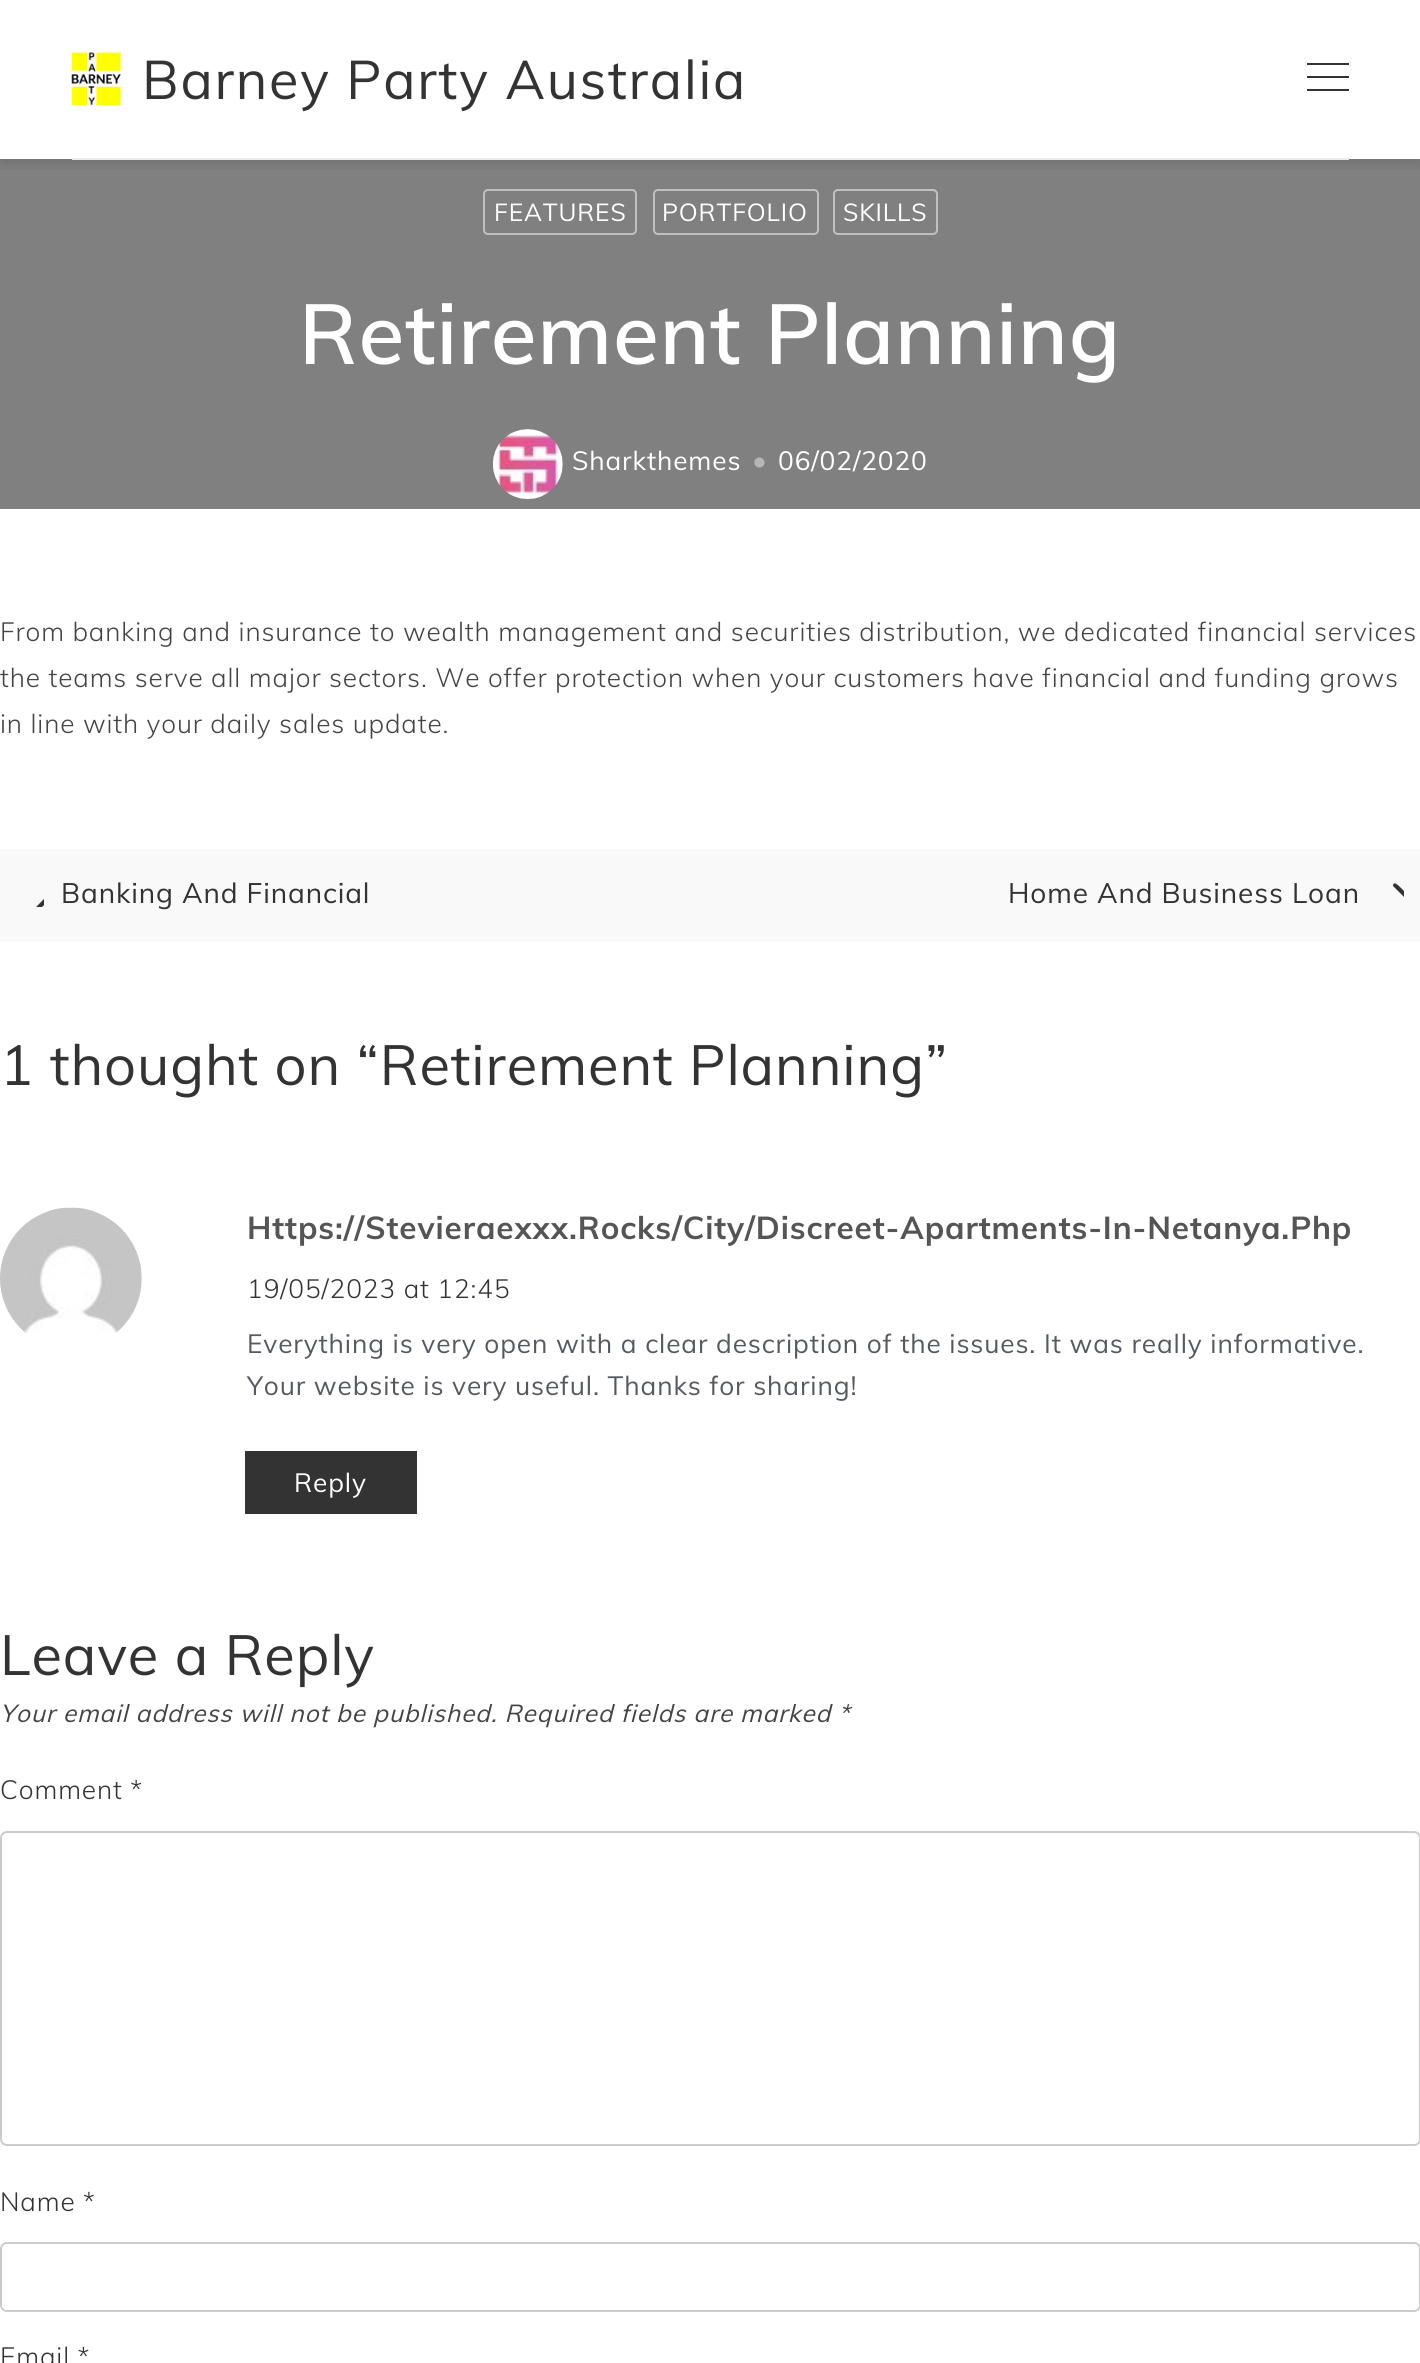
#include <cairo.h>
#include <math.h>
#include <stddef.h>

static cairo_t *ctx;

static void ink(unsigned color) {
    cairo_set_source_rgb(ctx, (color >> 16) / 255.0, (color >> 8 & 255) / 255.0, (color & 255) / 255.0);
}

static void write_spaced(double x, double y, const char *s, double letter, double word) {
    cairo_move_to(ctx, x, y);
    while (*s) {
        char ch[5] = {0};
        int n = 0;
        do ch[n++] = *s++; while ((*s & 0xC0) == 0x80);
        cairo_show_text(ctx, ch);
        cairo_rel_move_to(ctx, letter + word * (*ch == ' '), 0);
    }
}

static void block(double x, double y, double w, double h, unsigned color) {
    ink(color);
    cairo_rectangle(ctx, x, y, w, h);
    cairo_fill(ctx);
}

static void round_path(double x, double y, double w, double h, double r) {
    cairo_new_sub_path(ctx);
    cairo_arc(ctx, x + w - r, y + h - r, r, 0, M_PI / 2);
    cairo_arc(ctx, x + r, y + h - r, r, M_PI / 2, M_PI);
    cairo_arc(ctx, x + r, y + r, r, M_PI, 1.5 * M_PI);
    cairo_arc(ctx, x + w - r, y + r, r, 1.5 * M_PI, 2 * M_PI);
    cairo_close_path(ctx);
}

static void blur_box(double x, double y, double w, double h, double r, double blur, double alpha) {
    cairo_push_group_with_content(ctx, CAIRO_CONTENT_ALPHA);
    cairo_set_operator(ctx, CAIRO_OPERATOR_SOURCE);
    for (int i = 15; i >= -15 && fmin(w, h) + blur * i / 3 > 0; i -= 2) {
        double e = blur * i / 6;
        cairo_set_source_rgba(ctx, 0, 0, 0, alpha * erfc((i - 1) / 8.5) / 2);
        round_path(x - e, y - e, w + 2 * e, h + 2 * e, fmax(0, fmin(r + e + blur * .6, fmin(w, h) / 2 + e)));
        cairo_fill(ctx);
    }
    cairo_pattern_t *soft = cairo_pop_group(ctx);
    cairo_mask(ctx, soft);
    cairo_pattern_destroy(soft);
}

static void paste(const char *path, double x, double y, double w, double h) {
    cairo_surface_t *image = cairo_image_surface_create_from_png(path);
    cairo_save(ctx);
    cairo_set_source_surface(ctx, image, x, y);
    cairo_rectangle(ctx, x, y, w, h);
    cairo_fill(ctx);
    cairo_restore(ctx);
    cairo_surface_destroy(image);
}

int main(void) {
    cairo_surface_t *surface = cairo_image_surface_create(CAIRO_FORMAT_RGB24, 1420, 2363);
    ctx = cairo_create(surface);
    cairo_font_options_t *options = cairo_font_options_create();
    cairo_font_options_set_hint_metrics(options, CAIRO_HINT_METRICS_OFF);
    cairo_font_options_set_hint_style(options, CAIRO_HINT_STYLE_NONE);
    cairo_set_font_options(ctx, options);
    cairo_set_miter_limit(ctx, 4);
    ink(0xffffff);
    cairo_paint(ctx);
    block(0, 159, 1420, 350, 0x808080);
    cairo_save(ctx);
    cairo_rectangle(ctx, 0, 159, 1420, 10);
    cairo_clip(ctx);
    ink(0x000000);
    blur_box(0, 5, 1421, 160, 0, 4.5, 0.1);
    cairo_restore(ctx);
    paste("pic1.png", 71, 52, 50, 53);
    cairo_select_font_face(ctx, "Muli", CAIRO_FONT_SLANT_NORMAL, CAIRO_FONT_WEIGHT_NORMAL);
    cairo_set_font_size(ctx, 53.9);
    ink(0x333333);
    write_spaced(142, 99, "Barney Party Australia", 1.75, 0);
    block(1307, 63, 42, 2, 0x333333);
    block(1307, 76, 42, 2, 0x333333);
    block(1307, 89, 42, 2, 0x333333);
    block(72, 158, 1277, 2, 0xeaeaea);
    round_path(484, 190, 152, 44, 4);
    ink(0xc0c0c0);
    cairo_stroke(ctx);
    cairo_set_font_size(ctx, 24.5);
    ink(0xffffff);
    write_spaced(494, 221, "FEATURES", 0.88, 0);
    round_path(654, 190, 164, 44, 4);
    ink(0xc0c0c0);
    cairo_stroke(ctx);
    ink(0xffffff);
    write_spaced(662, 221, "PORTFOLIO", 0.88, 0);
    round_path(834, 190, 103, 44, 4);
    ink(0xc0c0c0);
    cairo_stroke(ctx);
    ink(0xffffff);
    write_spaced(843, 221, "SKILLS", 0.88, 0);
    cairo_select_font_face(ctx, "Muli SemiBold", CAIRO_FONT_SLANT_NORMAL, CAIRO_FONT_WEIGHT_NORMAL);
    cairo_set_font_size(ctx, 84);
    write_spaced(299, 364, "Retirement Planning", 0.88, 0);
    paste("pic2.png", 493, 429, 70, 70);
    cairo_select_font_face(ctx, "Muli", CAIRO_FONT_SLANT_NORMAL, CAIRO_FONT_WEIGHT_NORMAL);
    cairo_set_font_size(ctx, 26.25);
    write_spaced(572, 470, "Sharkthemes", 0.88, 0);
    cairo_select_font_face(ctx, "Muli Light", CAIRO_FONT_SLANT_NORMAL, CAIRO_FONT_WEIGHT_NORMAL);
    cairo_set_font_size(ctx, 28);
    ink(0xb5b5b5);
    write_spaced(752, 470, "•", 0.88, 0);
    cairo_select_font_face(ctx, "Muli", CAIRO_FONT_SLANT_NORMAL, CAIRO_FONT_WEIGHT_NORMAL);
    cairo_set_font_size(ctx, 26.25);
    ink(0xffffff);
    write_spaced(778, 470, "06/02/2020", 0.88, 0);
    cairo_select_font_face(ctx, "Muli Light", CAIRO_FONT_SLANT_NORMAL, CAIRO_FONT_WEIGHT_NORMAL);
    ink(0x444444);
    write_spaced(0, 641, "From banking and insurance to wealth management and securities distribution, we dedicated financial services", 0.88, 0);
    write_spaced(0, 687, "the teams serve all major sectors. We offer protection when your customers have financial and funding grows", 0.88, 0);
    write_spaced(0, 733, "in line with your daily sales update.", 0.88, 0);
    block(0, 849, 1420, 93, 0xf9f9f9);
    cairo_save(ctx);
    cairo_rectangle(ctx, 18, 880, 26, 27);
    cairo_clip(ctx);
    ink(0x333333);
    cairo_new_path(ctx);
    cairo_move_to(ctx, 60, 938);
    cairo_curve_to(ctx, 60, 939, 62, 939, 62, 938);
    cairo_curve_to(ctx, 65, 935, 59, 932, 58, 931);
    cairo_line_to(ctx, 38, 911);
    cairo_line_to(ctx, 63, 886);
    cairo_line_to(ctx, 63, 885);
    cairo_curve_to(ctx, 62, 881, 58, 885, 55, 888);
    cairo_line_to(ctx, 38, 905);
    cairo_curve_to(ctx, 32, 912, 32, 910, 38, 917);
    cairo_close_path(ctx);
    cairo_fill(ctx);
    cairo_restore(ctx);
    cairo_select_font_face(ctx, "Muli", CAIRO_FONT_SLANT_NORMAL, CAIRO_FONT_WEIGHT_NORMAL);
    cairo_set_font_size(ctx, 28);
    ink(0x333333);
    write_spaced(61, 903, "Banking And Financial", 0.88, 0);
    write_spaced(1008, 903, "Home And Business Loan", 0.88, 0);
    cairo_save(ctx);
    cairo_rectangle(ctx, 1377, 880, 27, 27);
    cairo_clip(ctx);
    cairo_new_path(ctx);
    cairo_move_to(ctx, 1396, 938);
    cairo_curve_to(ctx, 1396, 939, 1394, 939, 1394, 938);
    cairo_curve_to(ctx, 1391, 935, 1397, 932, 1398, 931);
    cairo_line_to(ctx, 1418, 911);
    cairo_line_to(ctx, 1393, 886);
    cairo_line_to(ctx, 1393, 885);
    cairo_curve_to(ctx, 1394, 881, 1398, 885, 1401, 888);
    cairo_line_to(ctx, 1418, 905);
    cairo_curve_to(ctx, 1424, 912, 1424, 910, 1418, 917);
    cairo_close_path(ctx);
    cairo_fill(ctx);
    cairo_restore(ctx);
    cairo_set_font_size(ctx, 56);
    write_spaced(0, 1085, "1 thought on “Retirement Planning”", 0.88, 0);
    paste("pic3.png", 0, 1207, 142, 127);
    cairo_select_font_face(ctx, "Muli", CAIRO_FONT_SLANT_NORMAL, CAIRO_FONT_WEIGHT_BOLD);
    cairo_set_font_size(ctx, 31.5);
    ink(0x555555);
    write_spaced(247, 1239, "Https://Stevieraexxx.Rocks/City/Discreet-Apartments-In-Netanya.Php", 0.88, 0);
    cairo_select_font_face(ctx, "Muli Light", CAIRO_FONT_SLANT_NORMAL, CAIRO_FONT_WEIGHT_NORMAL);
    cairo_set_font_size(ctx, 26.25);
    ink(0x333333);
    write_spaced(247, 1298, "19/05/2023 at 12:45", 0.88, 0);
    cairo_select_font_face(ctx, "Muli", CAIRO_FONT_SLANT_NORMAL, CAIRO_FONT_WEIGHT_NORMAL);
    ink(0x565a5f);
    write_spaced(247, 1353, "Everything is very open with a clear description of the issues. It was really informative.", 0.88, 0);
    write_spaced(247, 1395, "Your website is very useful. Thanks for sharing!", 0.88, 0);
    block(245, 1451, 172, 63, 0x333333);
    ink(0xffffff);
    write_spaced(294, 1492, "Reply", 0.88, 0);
    cairo_set_font_size(ctx, 56);
    ink(0x333333);
    write_spaced(0, 1675, "Leave a Reply", 0.88, 0);
    cairo_select_font_face(ctx, "Muli", CAIRO_FONT_SLANT_ITALIC, CAIRO_FONT_WEIGHT_NORMAL);
    cairo_set_font_size(ctx, 24.5);
    ink(0x444444);
    write_spaced(0, 1722, "Your email address will not be published. Required fields are marked *", 0.88, 0);
    cairo_select_font_face(ctx, "Muli Light", CAIRO_FONT_SLANT_NORMAL, CAIRO_FONT_WEIGHT_NORMAL);
    cairo_set_font_size(ctx, 26.25);
    ink(0x333333);
    write_spaced(0, 1799, "Comment *", 0.88, 0);
    round_path(1, 1832, 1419, 313, 6);
    ink(0xcccccc);
    cairo_stroke(ctx);
    ink(0x333333);
    write_spaced(0, 2211, "Name *", 0.88, 0);
    round_path(1, 2243, 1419, 68, 6);
    ink(0xcccccc);
    cairo_stroke(ctx);
    ink(0x333333);
    write_spaced(0, 2366, "Email *", 0.88, 0);
    cairo_surface_write_to_png(surface, "screenshot.png");
    cairo_font_options_destroy(options);
    cairo_destroy(ctx);
    cairo_surface_destroy(surface);
    return 0;
}
